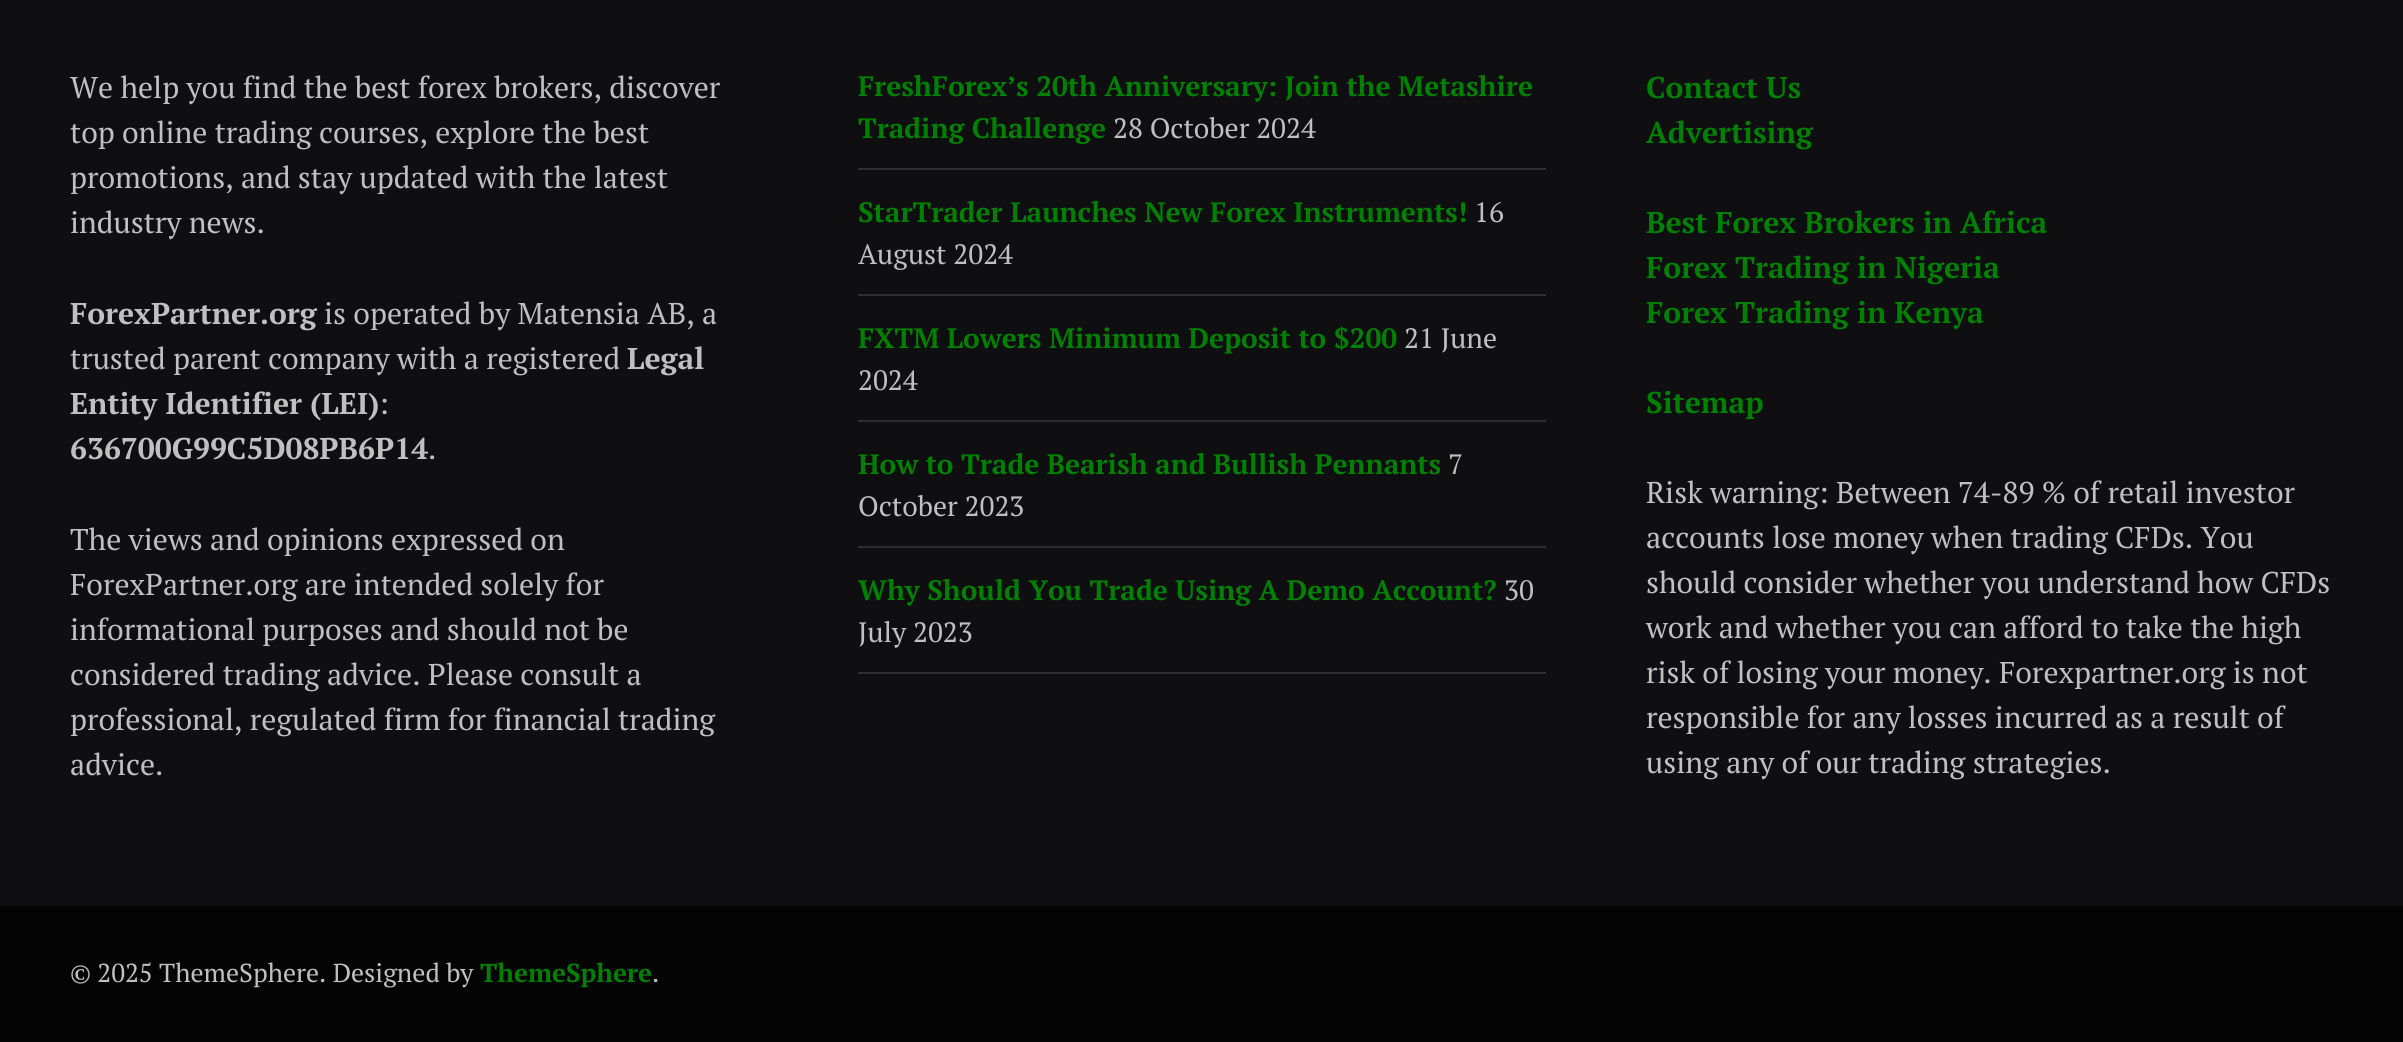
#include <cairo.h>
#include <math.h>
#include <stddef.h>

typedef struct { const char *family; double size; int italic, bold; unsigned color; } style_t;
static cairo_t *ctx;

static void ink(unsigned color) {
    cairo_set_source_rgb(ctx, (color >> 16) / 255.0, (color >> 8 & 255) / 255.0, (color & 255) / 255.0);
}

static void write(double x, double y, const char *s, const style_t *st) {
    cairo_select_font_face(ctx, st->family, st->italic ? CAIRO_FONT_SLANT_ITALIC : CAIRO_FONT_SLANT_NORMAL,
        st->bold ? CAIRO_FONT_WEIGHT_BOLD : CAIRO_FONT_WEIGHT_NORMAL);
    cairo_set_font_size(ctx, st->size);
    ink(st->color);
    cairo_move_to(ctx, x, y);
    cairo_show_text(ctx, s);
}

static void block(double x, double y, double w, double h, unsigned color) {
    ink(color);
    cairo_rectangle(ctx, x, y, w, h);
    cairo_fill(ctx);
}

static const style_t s1 = {"PT Serif", 30, 0, 0, 0xc0c0c0};
static const style_t s2 = {"PT Serif", 30, 0, 1, 0xc0c0c0};
static const style_t s3 = {"PT Serif", 28, 0, 1, 0x008000};
static const style_t s4 = {"PT Serif", 28, 0, 0, 0xc0c0c0};
static const style_t s5 = {"PT Serif", 30, 0, 1, 0x008000};
static const style_t s6 = {"PT Serif", 26, 0, 0, 0xc0c0c0};
static const style_t s7 = {"PT Serif", 26, 0, 1, 0x008000};

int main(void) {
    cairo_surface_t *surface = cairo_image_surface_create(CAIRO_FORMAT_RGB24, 2403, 1042);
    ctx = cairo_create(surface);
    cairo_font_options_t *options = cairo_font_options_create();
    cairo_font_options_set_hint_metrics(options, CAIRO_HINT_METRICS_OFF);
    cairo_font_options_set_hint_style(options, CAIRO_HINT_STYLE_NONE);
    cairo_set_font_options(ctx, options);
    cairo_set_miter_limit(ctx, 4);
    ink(0x0f0f11);
    cairo_paint(ctx);
    write(70, 98, "We help you find the best forex brokers, discover", &s1);
    write(70, 143, "top online trading courses, explore the best", &s1);
    write(70, 188, "promotions, and stay updated with the latest", &s1);
    write(70, 233, "industry news.", &s1);
    write(70, 324, "ForexPartner.org", &s2);
    write(324, 324, "is operated by Matensia AB, a", &s1);
    write(70, 369, "trusted parent company with a registered", &s1);
    write(627, 369, "Legal", &s2);
    write(70, 414, "Entity Identifier (LEI)", &s2);
    write(379, 414, ":", &s1);
    write(70, 459, "636700G99C5D08PB6P14", &s2);
    write(428, 459, ".", &s1);
    write(70, 550, "The views and opinions expressed on", &s1);
    write(70, 595, "ForexPartner.org are intended solely for", &s1);
    write(70, 640, "informational purposes and should not be", &s1);
    write(70, 685, "considered trading advice. Please consult a", &s1);
    write(70, 730, "professional, regulated firm for financial trading", &s1);
    write(70, 775, "advice.", &s1);
    block(858, 168, 688, 2, 0x2e2e30);
    write(858, 96, "FreshForex’s 20th Anniversary: Join the Metashire", &s3);
    write(858, 138, "Trading Challenge", &s3);
    write(1113, 138, "28 October 2024", &s4);
    block(858, 294, 688, 2, 0x2e2e30);
    write(858, 222, "StarTrader Launches New Forex Instruments!", &s3);
    write(1474, 222, "16", &s4);
    write(858, 264, "August 2024", &s4);
    block(858, 420, 688, 2, 0x2e2e30);
    write(858, 348, "FXTM Lowers Minimum Deposit to $200", &s3);
    write(1404, 348, "21 June", &s4);
    write(858, 390, "2024", &s4);
    block(858, 546, 688, 2, 0x2e2e30);
    write(858, 474, "How to Trade Bearish and Bullish Pennants", &s3);
    write(1448, 474, "7", &s4);
    write(858, 516, "October 2023", &s4);
    block(858, 672, 688, 2, 0x2e2e30);
    write(858, 600, "Why Should You Trade Using A Demo Account?", &s3);
    write(1504, 600, "30", &s4);
    write(858, 642, "July 2023", &s4);
    write(1646, 98, "Contact Us", &s5);
    write(1646, 143, "Advertising", &s5);
    write(1646, 233, "Best Forex Brokers in Africa", &s5);
    write(1646, 278, "Forex Trading in Nigeria", &s5);
    write(1646, 323, "Forex Trading in Kenya", &s5);
    write(1646, 413, "Sitemap", &s5);
    write(1646, 503, "Risk warning: Between 74-89 % of retail investor", &s1);
    write(1646, 548, "accounts lose money when trading CFDs. You", &s1);
    write(1646, 593, "should consider whether you understand how CFDs", &s1);
    write(1646, 638, "work and whether you can afford to take the high", &s1);
    write(1646, 683, "risk of losing your money. Forexpartner.org is not", &s1);
    write(1646, 728, "responsible for any losses incurred as a result of", &s1);
    write(1646, 773, "using any of our trading strategies.", &s1);
    block(0, 906, 2403, 136, 0x040404);
    write(70, 982, "© 2025 ThemeSphere. Designed by", &s6);
    write(480, 982, "ThemeSphere", &s7);
    write(652, 982, ".", &s6);
    cairo_surface_write_to_png(surface, "screenshot.png");
    cairo_font_options_destroy(options);
    cairo_destroy(ctx);
    cairo_surface_destroy(surface);
    return 0;
}
